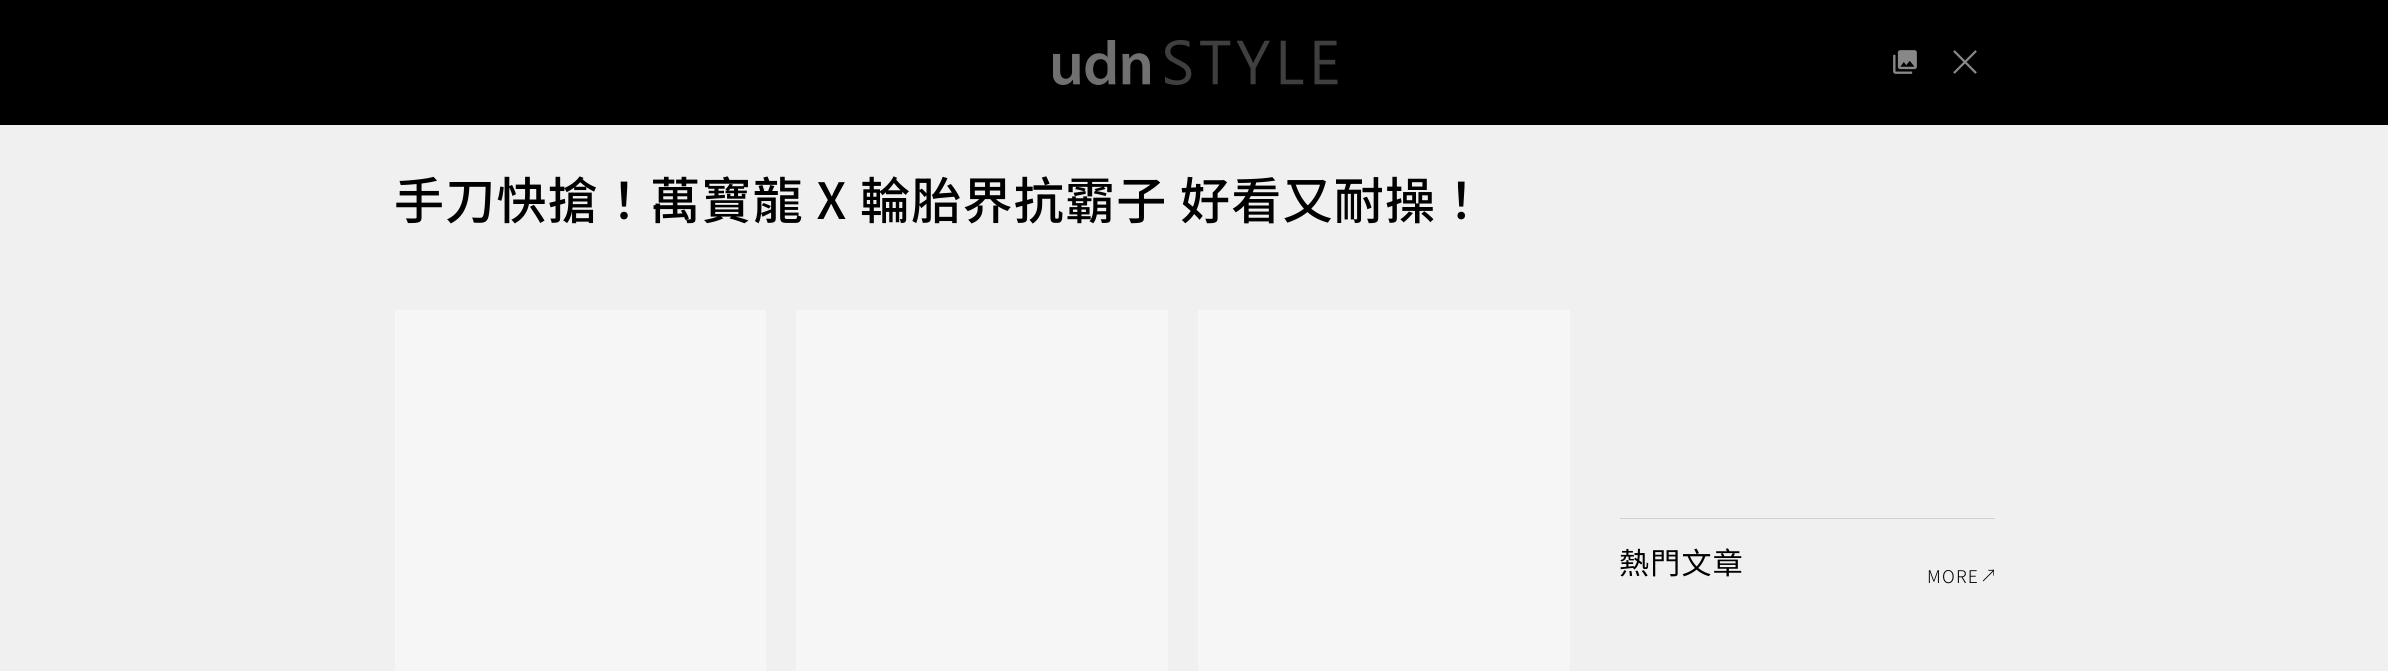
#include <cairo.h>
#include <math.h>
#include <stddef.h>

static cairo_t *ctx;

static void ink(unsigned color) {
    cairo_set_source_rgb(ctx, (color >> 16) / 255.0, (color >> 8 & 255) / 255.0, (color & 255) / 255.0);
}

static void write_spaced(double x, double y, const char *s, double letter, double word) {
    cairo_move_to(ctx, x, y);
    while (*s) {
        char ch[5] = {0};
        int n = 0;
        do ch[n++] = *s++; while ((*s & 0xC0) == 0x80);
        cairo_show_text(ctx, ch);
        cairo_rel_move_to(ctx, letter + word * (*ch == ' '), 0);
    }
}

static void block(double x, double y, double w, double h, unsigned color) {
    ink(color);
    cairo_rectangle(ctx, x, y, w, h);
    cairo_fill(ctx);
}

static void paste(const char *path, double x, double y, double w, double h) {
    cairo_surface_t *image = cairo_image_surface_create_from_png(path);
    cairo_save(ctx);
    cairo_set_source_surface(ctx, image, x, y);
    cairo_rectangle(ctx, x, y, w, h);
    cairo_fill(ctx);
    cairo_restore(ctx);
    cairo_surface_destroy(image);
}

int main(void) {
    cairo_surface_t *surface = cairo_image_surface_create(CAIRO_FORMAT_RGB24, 2388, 671);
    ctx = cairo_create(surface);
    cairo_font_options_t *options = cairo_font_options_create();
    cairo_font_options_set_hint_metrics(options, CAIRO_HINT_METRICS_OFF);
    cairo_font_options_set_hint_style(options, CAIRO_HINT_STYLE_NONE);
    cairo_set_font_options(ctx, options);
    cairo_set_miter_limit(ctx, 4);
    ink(0xf0f0f0);
    cairo_paint(ctx);
    block(0, 0, 2388, 125, 0x000000);
    paste("pic1.png", 1053, 40, 97, 45);
    paste("pic2.png", 1165, 40, 173, 45);
    paste("pic3.png", 1893, 50, 24, 24);
    paste("pic4.png", 1953, 50, 24, 24);
    cairo_select_font_face(ctx, "Noto Sans TC Medium", CAIRO_FONT_SLANT_NORMAL, CAIRO_FONT_WEIGHT_NORMAL);
    cairo_set_font_size(ctx, 50);
    write_spaced(394, 219, "手刀快搶！萬寶龍 X 輪胎界抗霸子 好看又耐操！", 1.25, 0);
    block(395, 310, 371, 361, 0xf6f6f6);
    block(796, 310, 372, 361, 0xf6f6f6);
    block(1198, 310, 372, 361, 0xf6f6f6);
    block(1620, 518, 375, 1, 0xd1d1d1);
    cairo_select_font_face(ctx, "Noto Sans TC", CAIRO_FONT_SLANT_NORMAL, CAIRO_FONT_WEIGHT_NORMAL);
    cairo_set_font_size(ctx, 30);
    ink(0x000000);
    write_spaced(1619, 574, "熱門文章", 1.25, 0);
    cairo_select_font_face(ctx, "Noto Sans TC Light", CAIRO_FONT_SLANT_NORMAL, CAIRO_FONT_WEIGHT_NORMAL);
    cairo_set_font_size(ctx, 17.5);
    write_spaced(1927, 583, "MORE", 1.25, 0);
    paste("pic5.png", 1983, 569, 11, 13);
    cairo_surface_write_to_png(surface, "screenshot.png");
    cairo_font_options_destroy(options);
    cairo_destroy(ctx);
    cairo_surface_destroy(surface);
    return 0;
}
